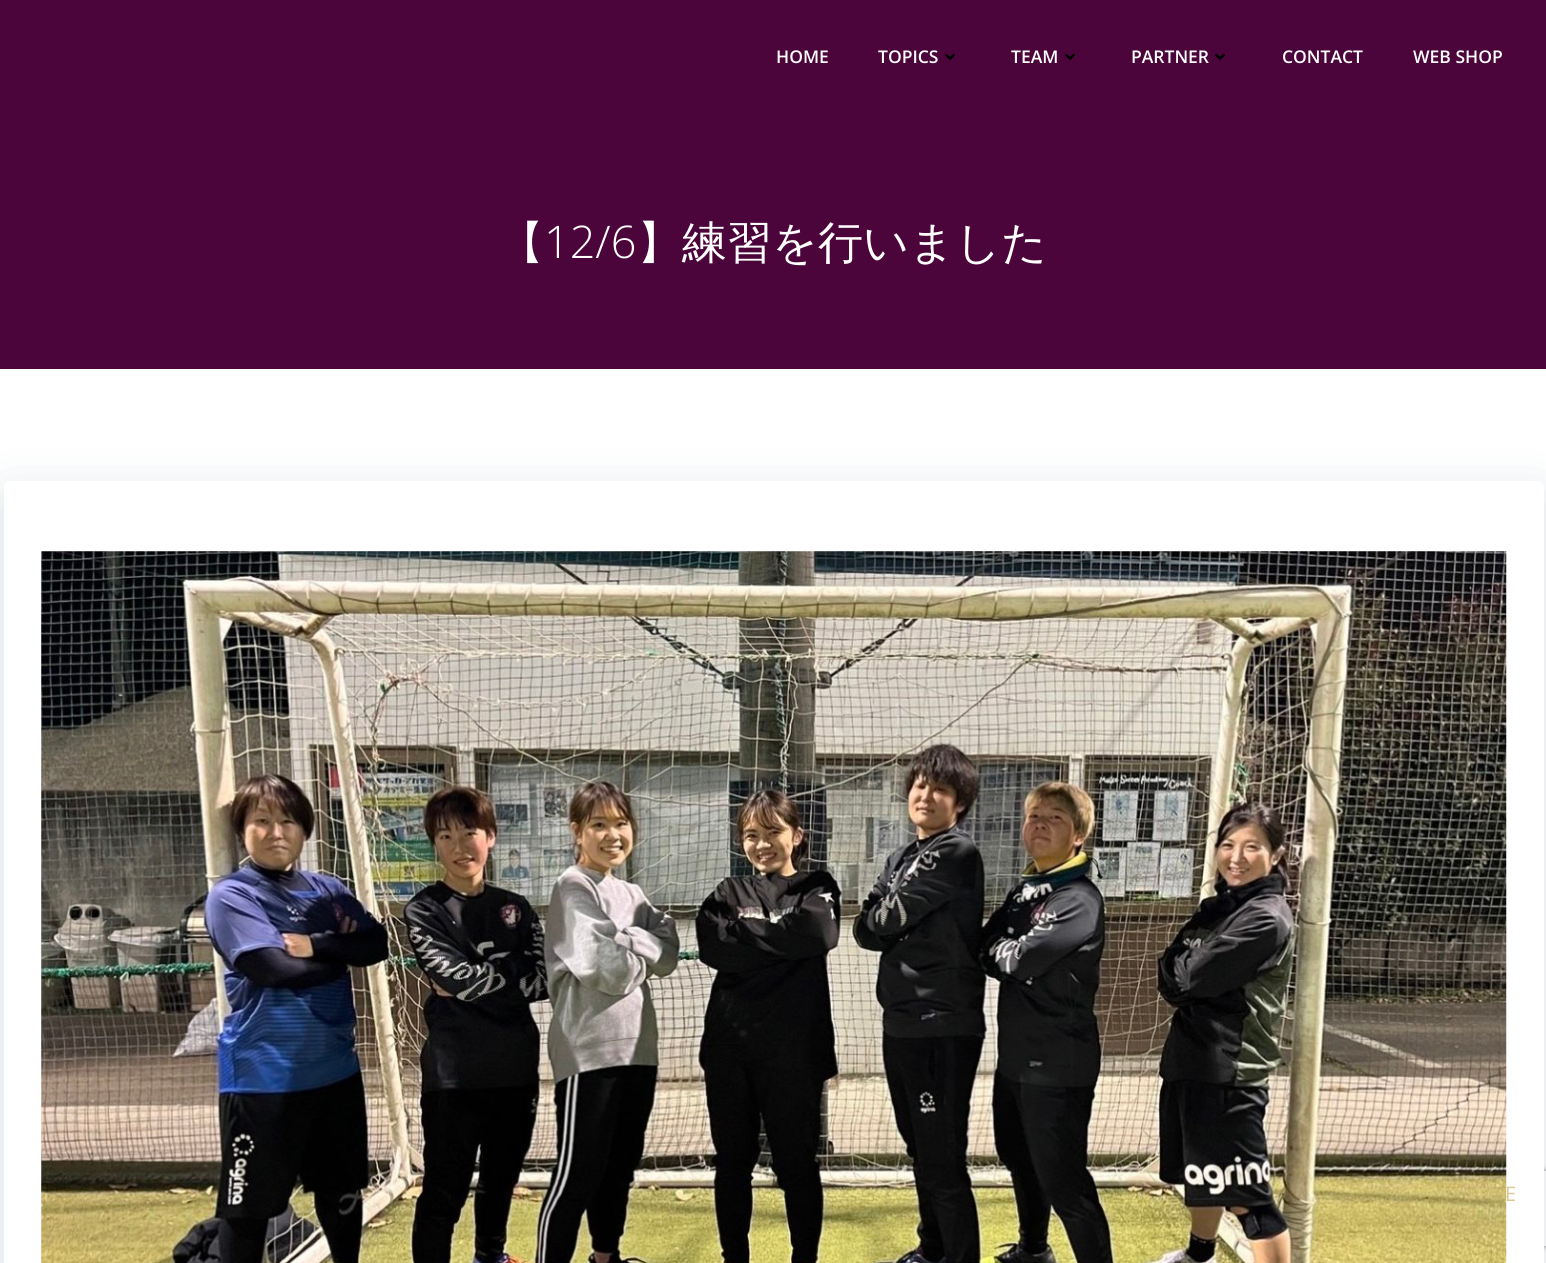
#include <cairo.h>
#include <math.h>
#include <stddef.h>

typedef struct { const char *family; double size; int italic, bold; unsigned color; } style_t;
static cairo_t *ctx;

static void ink(unsigned color) {
    cairo_set_source_rgb(ctx, (color >> 16) / 255.0, (color >> 8 & 255) / 255.0, (color & 255) / 255.0);
}

static void write(double x, double y, const char *s, const style_t *st) {
    cairo_select_font_face(ctx, st->family, st->italic ? CAIRO_FONT_SLANT_ITALIC : CAIRO_FONT_SLANT_NORMAL,
        st->bold ? CAIRO_FONT_WEIGHT_BOLD : CAIRO_FONT_WEIGHT_NORMAL);
    cairo_set_font_size(ctx, st->size);
    ink(st->color);
    cairo_move_to(ctx, x, y);
    cairo_show_text(ctx, s);
}

static void block(double x, double y, double w, double h, unsigned color) {
    ink(color);
    cairo_rectangle(ctx, x, y, w, h);
    cairo_fill(ctx);
}

static void round_path(double x, double y, double w, double h, double r) {
    cairo_new_sub_path(ctx);
    cairo_arc(ctx, x + w - r, y + h - r, r, 0, M_PI / 2);
    cairo_arc(ctx, x + r, y + h - r, r, M_PI / 2, M_PI);
    cairo_arc(ctx, x + r, y + r, r, M_PI, 1.5 * M_PI);
    cairo_arc(ctx, x + w - r, y + r, r, 1.5 * M_PI, 2 * M_PI);
    cairo_close_path(ctx);
}

static void blur_box(double x, double y, double w, double h, double r, double blur, double alpha) {
    cairo_push_group_with_content(ctx, CAIRO_CONTENT_ALPHA);
    cairo_set_operator(ctx, CAIRO_OPERATOR_SOURCE);
    for (int i = 15; i >= -15 && fmin(w, h) + blur * i / 3 > 0; i -= 2) {
        double e = blur * i / 6;
        cairo_set_source_rgba(ctx, 0, 0, 0, alpha * erfc((i - 1) / 8.5) / 2);
        round_path(x - e, y - e, w + 2 * e, h + 2 * e, fmax(0, fmin(r + e + blur * .6, fmin(w, h) / 2 + e)));
        cairo_fill(ctx);
    }
    cairo_pattern_t *soft = cairo_pop_group(ctx);
    cairo_mask(ctx, soft);
    cairo_pattern_destroy(soft);
}

static void paste(const char *path, double x, double y, double w, double h) {
    cairo_surface_t *image = cairo_image_surface_create_from_png(path);
    cairo_save(ctx);
    cairo_set_source_surface(ctx, image, x, y);
    cairo_rectangle(ctx, x, y, w, h);
    cairo_fill(ctx);
    cairo_restore(ctx);
    cairo_surface_destroy(image);
}

static const style_t s1 = {"Open Sans SemiBold", 17.5, 0, 0, 0xffffff};
static const style_t s2 = {"WenQuanYi Zen Hei Medium", 45, 0, 0, 0xffffff};
static const style_t s3 = {"Open Sans Light", 45, 0, 0, 0xffffff};
static const style_t s4 = {"Open Sans", 20, 0, 0, 0xd7ca93};

int main(void) {
    cairo_surface_t *surface = cairo_image_surface_create(CAIRO_FORMAT_RGB24, 1546, 1263);
    ctx = cairo_create(surface);
    cairo_font_options_t *options = cairo_font_options_create();
    cairo_font_options_set_hint_metrics(options, CAIRO_HINT_METRICS_OFF);
    cairo_font_options_set_hint_style(options, CAIRO_HINT_STYLE_NONE);
    cairo_set_font_options(ctx, options);
    cairo_set_miter_limit(ctx, 4);
    ink(0xffffff);
    cairo_paint(ctx);
    block(0, 0, 1546, 369, 0x4c053a);
    write(776, 63, "HOME", &s1);
    write(878, 63, "TOPICS", &s1);
    paste("pic1.png", 945, 53, 10, 7);
    write(1011, 63, "TEAM", &s1);
    paste("pic1.png", 1065, 53, 10, 7);
    write(1131, 63, "PARTNER", &s1);
    paste("pic1.png", 1215, 53, 10, 7);
    write(1282, 63, "CONTACT", &s1);
    write(1413, 63, "WEB SHOP", &s1);
    write(499, 258, "【", &s2);
    write(544, 258, "12/6", &s3);
    write(637, 258, "】練習を行いました", &s2);
    ink(0x01334a);
    blur_box(4, 494, 1540, 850, 6, 25, 0.15);
    cairo_save(ctx);
    cairo_set_fill_rule(ctx, CAIRO_FILL_RULE_EVEN_ODD);
    cairo_new_path(ctx);
    cairo_move_to(ctx, 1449, 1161);
    cairo_line_to(ctx, 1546, 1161);
    cairo_line_to(ctx, 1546, 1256);
    cairo_line_to(ctx, 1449, 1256);
    cairo_close_path(ctx);
    cairo_move_to(ctx, 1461.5, 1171);
    cairo_line_to(ctx, 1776.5, 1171);
    cairo_curve_to(ctx, 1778, 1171, 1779, 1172, 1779, 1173.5);
    cairo_line_to(ctx, 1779, 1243.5);
    cairo_curve_to(ctx, 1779, 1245, 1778, 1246, 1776.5, 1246);
    cairo_line_to(ctx, 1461.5, 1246);
    cairo_curve_to(ctx, 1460, 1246, 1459, 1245, 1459, 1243.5);
    cairo_line_to(ctx, 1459, 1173.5);
    cairo_curve_to(ctx, 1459, 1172, 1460, 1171, 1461.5, 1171);
    cairo_close_path(ctx);
    cairo_clip(ctx);
    ink(0x808080);
    blur_box(1459, 1171, 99, 75, 2.5, 3, 1);
    cairo_restore(ctx);
    ink(0xffffff);
    round_path(4, 481, 1540, 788, 6);
    cairo_fill(ctx);
    paste("pic2.png", 41, 551, 1466, 712);
    write(1505, 1201, "E", &s4);
    cairo_surface_write_to_png(surface, "screenshot.png");
    cairo_font_options_destroy(options);
    cairo_destroy(ctx);
    cairo_surface_destroy(surface);
    return 0;
}
